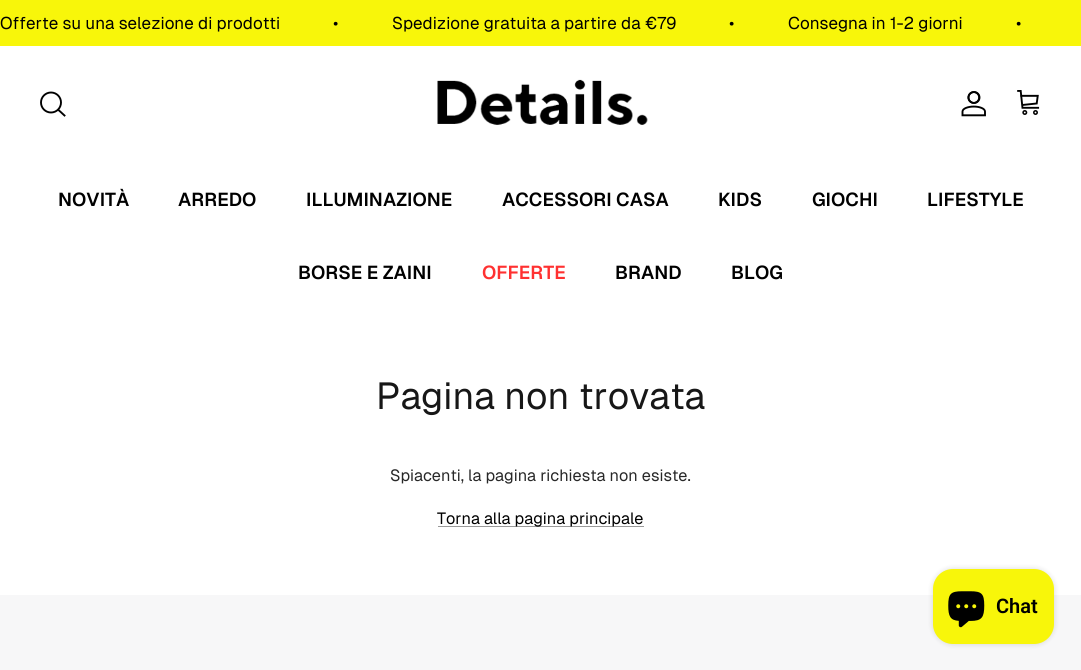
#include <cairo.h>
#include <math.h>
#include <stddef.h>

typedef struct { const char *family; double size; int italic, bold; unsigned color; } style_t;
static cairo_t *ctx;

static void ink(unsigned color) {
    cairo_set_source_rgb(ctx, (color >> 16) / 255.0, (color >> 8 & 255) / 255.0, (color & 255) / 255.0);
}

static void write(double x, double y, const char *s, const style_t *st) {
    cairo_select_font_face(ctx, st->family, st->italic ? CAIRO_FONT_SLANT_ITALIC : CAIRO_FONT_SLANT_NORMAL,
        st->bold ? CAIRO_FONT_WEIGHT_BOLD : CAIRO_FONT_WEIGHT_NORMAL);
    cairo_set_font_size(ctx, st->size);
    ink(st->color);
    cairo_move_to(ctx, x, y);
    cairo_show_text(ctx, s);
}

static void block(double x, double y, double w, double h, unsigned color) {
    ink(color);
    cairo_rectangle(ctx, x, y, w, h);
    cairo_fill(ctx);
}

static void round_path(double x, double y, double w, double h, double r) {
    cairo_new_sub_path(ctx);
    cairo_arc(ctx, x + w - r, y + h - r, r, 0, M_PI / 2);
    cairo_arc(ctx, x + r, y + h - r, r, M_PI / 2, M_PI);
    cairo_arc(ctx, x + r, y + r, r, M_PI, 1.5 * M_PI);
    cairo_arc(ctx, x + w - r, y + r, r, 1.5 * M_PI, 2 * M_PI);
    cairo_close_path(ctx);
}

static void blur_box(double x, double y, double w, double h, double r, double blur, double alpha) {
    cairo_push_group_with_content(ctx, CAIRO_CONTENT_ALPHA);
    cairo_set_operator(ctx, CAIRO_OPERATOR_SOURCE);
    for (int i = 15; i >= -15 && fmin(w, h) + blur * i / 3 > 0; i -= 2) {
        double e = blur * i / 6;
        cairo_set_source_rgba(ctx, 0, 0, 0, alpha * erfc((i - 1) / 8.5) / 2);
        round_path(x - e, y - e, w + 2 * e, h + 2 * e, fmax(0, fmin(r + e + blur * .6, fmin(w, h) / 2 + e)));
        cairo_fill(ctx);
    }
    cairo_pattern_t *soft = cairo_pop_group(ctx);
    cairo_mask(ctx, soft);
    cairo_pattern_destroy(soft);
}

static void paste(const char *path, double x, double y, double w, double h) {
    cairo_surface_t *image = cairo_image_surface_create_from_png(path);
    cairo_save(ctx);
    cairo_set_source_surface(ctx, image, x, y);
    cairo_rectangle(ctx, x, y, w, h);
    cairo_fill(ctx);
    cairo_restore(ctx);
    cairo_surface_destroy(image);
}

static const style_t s1 = {"Geist", 17, 0, 0, 0x000000};
static const style_t s2 = {"Geist SemiBold", 18.75, 0, 0, 0x000000};
static const style_t s3 = {"Geist SemiBold", 18.75, 0, 0, 0xff3131};
static const style_t s4 = {"Geist", 37.5, 0, 0, 0x171717};
static const style_t s5 = {"Geist", 16.25, 0, 0, 0x282828};
static const style_t s6 = {"Geist", 16.25, 0, 0, 0x000000};
static const style_t s7 = {"Roboto SemiBold", 20, 0, 0, 0x000000};

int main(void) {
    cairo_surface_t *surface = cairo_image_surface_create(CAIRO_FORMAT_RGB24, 1081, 670);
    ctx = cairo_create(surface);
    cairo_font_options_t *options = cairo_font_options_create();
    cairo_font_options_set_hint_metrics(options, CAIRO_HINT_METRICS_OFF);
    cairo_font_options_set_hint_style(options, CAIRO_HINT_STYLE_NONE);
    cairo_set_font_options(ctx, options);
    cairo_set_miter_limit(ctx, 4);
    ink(0xffffff);
    cairo_paint(ctx);
    block(0, 0, 1081, 46, 0xf8f60a);
    write(0, 29, "Offerte su una selezione di prodotti", &s1);
    write(333, 29, "•", &s1);
    write(392, 29, "Spedizione gratuita a partire da €79", &s1);
    write(729, 29, "•", &s1);
    write(788, 29, "Consegna in 1-2 giorni", &s1);
    write(1016, 29, "•", &s1);
    cairo_new_path(ctx);
    cairo_arc(ctx, 51, 102.5, 10, 0, 2 * M_PI);
    cairo_set_line_width(ctx, 1.9);
    cairo_stroke(ctx);
    cairo_new_path(ctx);
    cairo_move_to(ctx, 58.5, 110);
    cairo_line_to(ctx, 64.5, 115.5);
    cairo_set_line_cap(ctx, CAIRO_LINE_CAP_SQUARE);
    cairo_stroke(ctx);
    paste("pic1.png", 437, 79, 211, 46);
    paste("pic2.png", 961, 91, 25, 26);
    paste("pic3.png", 1017, 90, 23, 25);
    write(58, 206, "NOVITÀ", &s2);
    write(178, 206, "ARREDO", &s2);
    write(306, 206, "ILLUMINAZIONE", &s2);
    write(502, 206, "ACCESSORI CASA", &s2);
    write(718, 206, "KIDS", &s2);
    write(812, 206, "GIOCHI", &s2);
    write(927, 206, "LIFESTYLE", &s2);
    write(298, 279, "BORSE E ZAINI", &s2);
    write(482, 279, "OFFERTE", &s3);
    write(615, 279, "BRAND", &s2);
    write(731, 279, "BLOG", &s2);
    write(376, 409, "Pagina non trovata", &s4);
    write(390, 481, "Spiacenti, la pagina richiesta non esiste.", &s5);
    block(438, 526, 206, 1, 0x999999);
    write(437, 524, "Torna alla pagina principale", &s6);
    block(0, 595, 1081, 75, 0xf7f7f8);
    ink(0x000000);
    blur_box(933, 569, 121, 75, 20, 3, 0.15);
    ink(0xf8f60a);
    round_path(933, 569, 121, 75, 20);
    cairo_fill(ctx);
    paste("pic4.png", 948, 591, 37, 37);
    write(996, 613, "Chat", &s7);
    cairo_surface_write_to_png(surface, "screenshot.png");
    cairo_font_options_destroy(options);
    cairo_destroy(ctx);
    cairo_surface_destroy(surface);
    return 0;
}
